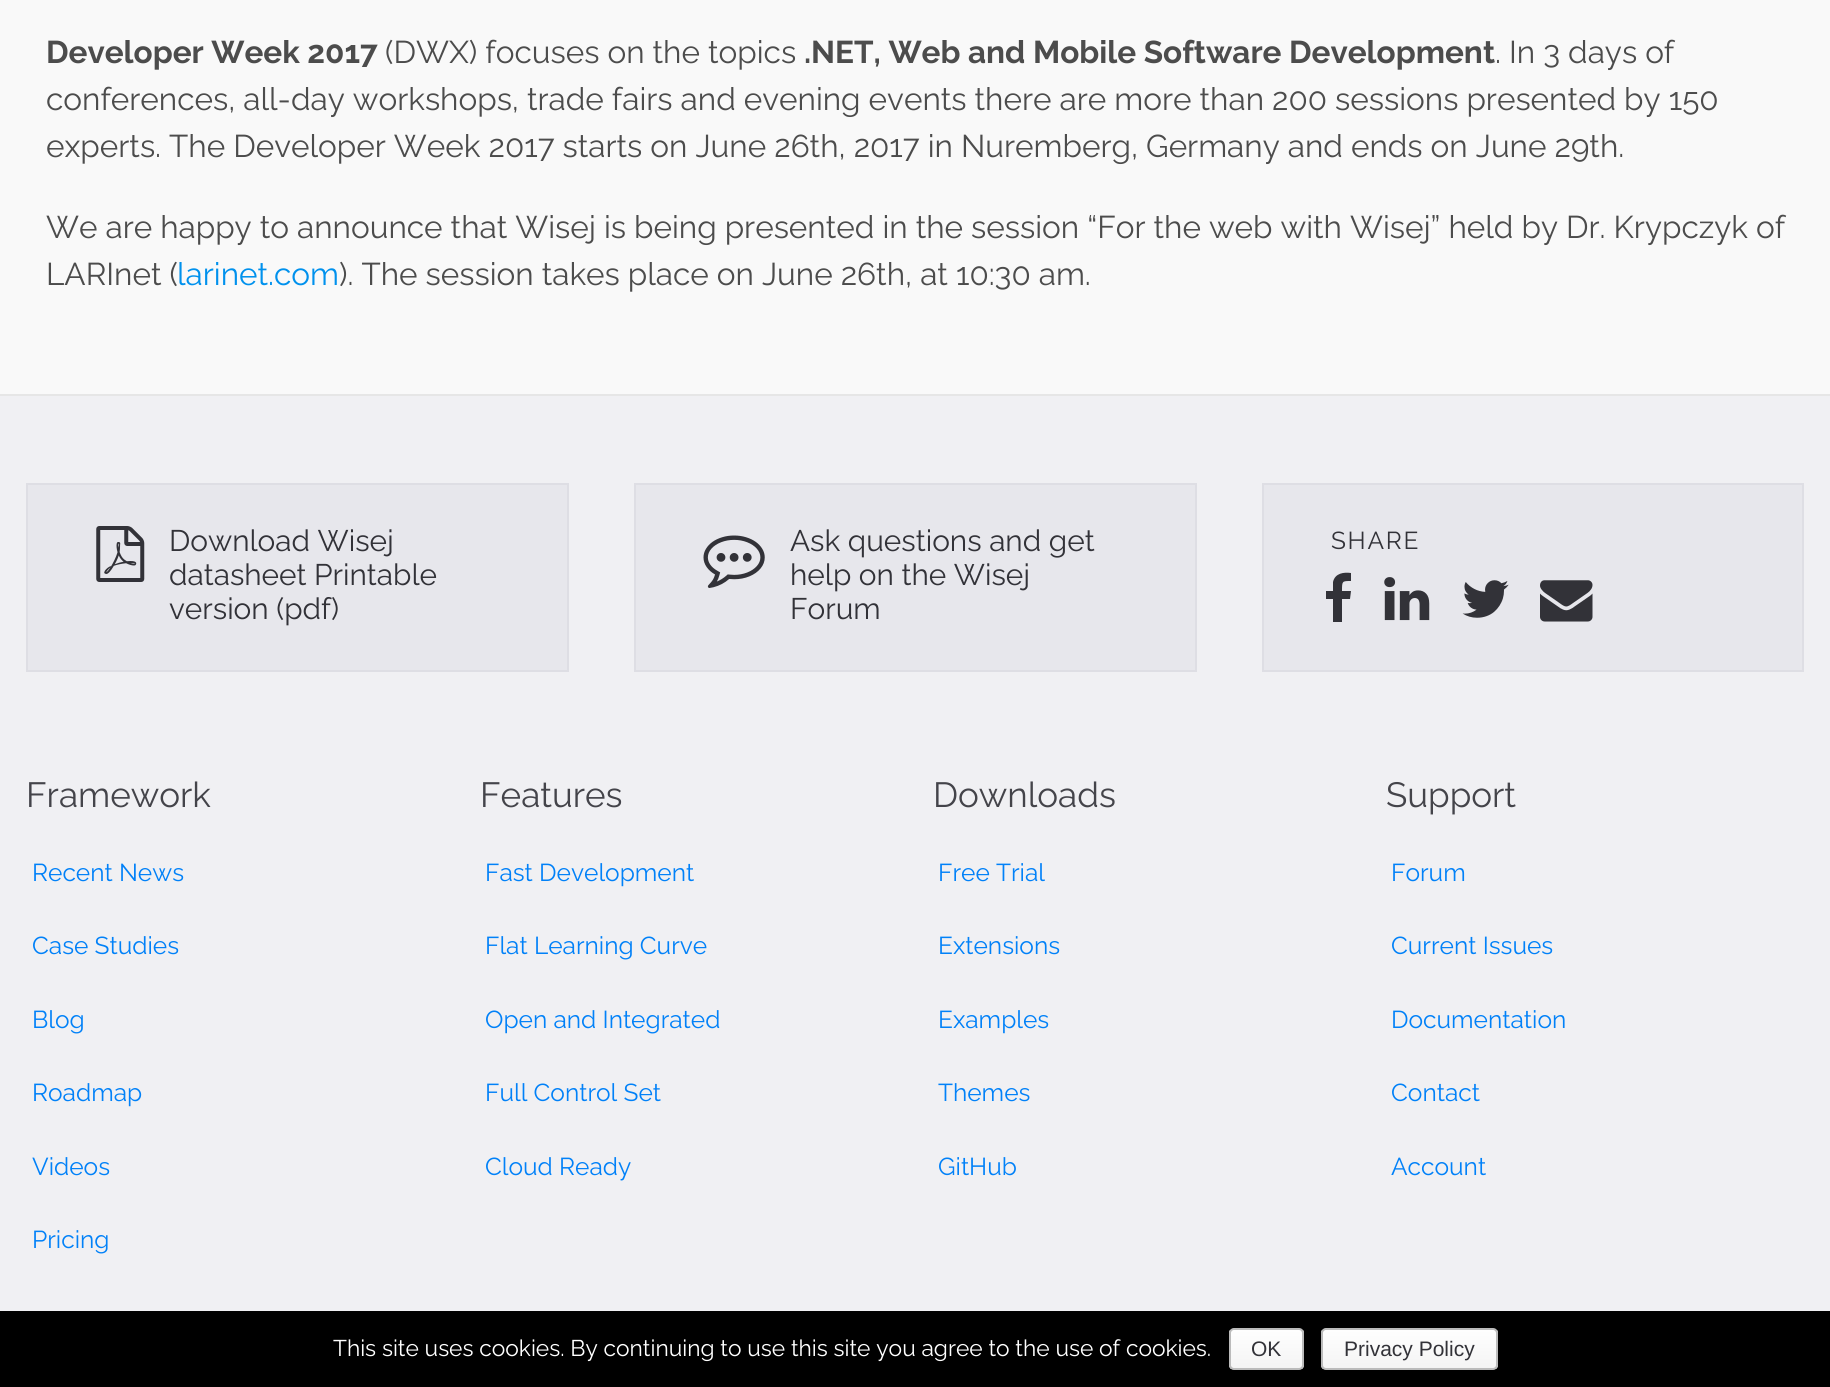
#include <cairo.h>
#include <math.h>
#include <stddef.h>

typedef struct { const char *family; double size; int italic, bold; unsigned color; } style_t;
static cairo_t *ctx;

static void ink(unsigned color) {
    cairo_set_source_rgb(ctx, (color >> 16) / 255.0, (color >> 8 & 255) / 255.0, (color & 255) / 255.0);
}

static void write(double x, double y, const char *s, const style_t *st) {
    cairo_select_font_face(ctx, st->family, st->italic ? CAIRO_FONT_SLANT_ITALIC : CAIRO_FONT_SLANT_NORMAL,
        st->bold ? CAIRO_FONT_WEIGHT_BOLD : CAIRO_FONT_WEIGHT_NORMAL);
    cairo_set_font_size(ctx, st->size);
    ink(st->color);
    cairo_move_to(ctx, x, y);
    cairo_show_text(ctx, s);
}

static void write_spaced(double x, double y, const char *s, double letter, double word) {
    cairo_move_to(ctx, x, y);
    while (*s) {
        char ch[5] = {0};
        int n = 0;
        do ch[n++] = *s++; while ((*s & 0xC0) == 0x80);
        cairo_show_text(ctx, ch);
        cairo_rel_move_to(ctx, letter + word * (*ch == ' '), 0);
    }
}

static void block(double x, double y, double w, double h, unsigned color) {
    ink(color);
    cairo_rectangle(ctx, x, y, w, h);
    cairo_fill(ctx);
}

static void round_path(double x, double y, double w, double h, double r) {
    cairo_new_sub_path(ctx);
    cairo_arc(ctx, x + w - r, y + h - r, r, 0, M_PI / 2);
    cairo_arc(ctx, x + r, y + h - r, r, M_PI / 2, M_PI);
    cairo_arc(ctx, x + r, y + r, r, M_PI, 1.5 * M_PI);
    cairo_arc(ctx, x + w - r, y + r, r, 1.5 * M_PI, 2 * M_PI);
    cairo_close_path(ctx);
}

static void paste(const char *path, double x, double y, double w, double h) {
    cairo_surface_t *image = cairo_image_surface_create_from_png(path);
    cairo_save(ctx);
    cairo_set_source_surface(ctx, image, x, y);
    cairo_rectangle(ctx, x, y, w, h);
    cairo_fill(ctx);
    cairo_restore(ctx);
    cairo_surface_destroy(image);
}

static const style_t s1 = {"Raleway", 31.5, 0, 1, 0x4c4c4c};
static const style_t s2 = {"Raleway", 31.5, 0, 0, 0x4c4c4c};
static const style_t s3 = {"Raleway", 31.5, 0, 0, 0x0091ed};
static const style_t s4 = {"Raleway", 29.75, 0, 0, 0x323238};
static const style_t s5 = {"Raleway", 35, 0, 0, 0x44444a};
static const style_t s6 = {"Raleway", 24.5, 0, 0, 0x0181f8};
static const style_t s7 = {"Raleway", 22.75, 0, 0, 0xffffff};
static const style_t s8 = {"Liberation Sans", 21, 0, 0, 0x323238};

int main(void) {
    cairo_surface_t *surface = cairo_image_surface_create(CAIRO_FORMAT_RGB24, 1830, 1387);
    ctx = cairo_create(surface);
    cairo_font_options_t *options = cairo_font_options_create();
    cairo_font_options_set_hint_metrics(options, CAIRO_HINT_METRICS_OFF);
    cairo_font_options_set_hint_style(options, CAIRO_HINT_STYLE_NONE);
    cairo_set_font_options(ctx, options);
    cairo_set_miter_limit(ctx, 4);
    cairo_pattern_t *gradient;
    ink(0xf9f9f9);
    cairo_paint(ctx);
    write(46, 63, "Developer Week 2017", &s1);
    write(385, 63, "(DWX) focuses on the topics", &s2);
    write(804, 63, ".NET, Web and Mobile Software Development", &s1);
    write(1495, 63, ". In 3 days of", &s2);
    write(46, 110, "conferences, all-day workshops, trade fairs and evening events there are more than 200 sessions presented by 150", &s2);
    write(46, 157, "experts. The Developer Week 2017 starts on June 26th, 2017 in Nuremberg, Germany and ends on June 29th.", &s2);
    write(46, 238, "We are happy to announce that Wisej is being presented in the session “For the web with Wisej” held by Dr. Krypczyk of", &s2);
    write(46, 285, "LARInet (", &s2);
    write(177, 285, "larinet.com", &s3);
    write(339, 285, "). The session takes place on June 26th, at 10:30 am.", &s2);
    block(0, 394, 1830, 2, 0xe6e6e6);
    block(0, 396, 1830, 915, 0xf0f0f3);
    ink(0xe7e7ec);
    cairo_rectangle(ctx, 27, 484, 541, 187);
    cairo_fill_preserve(ctx);
    ink(0xdedee4);
    cairo_stroke(ctx);
    paste("pic1.png", 96, 526, 49, 56);
    write(169, 551, "Download Wisej", &s4);
    write(169, 585, "datasheet Printable", &s4);
    write(169, 619, "version (pdf)", &s4);
    ink(0xe7e7ec);
    cairo_rectangle(ctx, 635, 484, 561, 187);
    cairo_fill_preserve(ctx);
    ink(0xdedee4);
    cairo_stroke(ctx);
    paste("pic2.png", 703, 535, 62, 53);
    write(790, 551, "Ask questions and get", &s4);
    write(790, 585, "help on the Wisej", &s4);
    write(790, 619, "Forum", &s4);
    ink(0xe7e7ec);
    cairo_rectangle(ctx, 1263, 484, 540, 187);
    cairo_fill_preserve(ctx);
    ink(0xdedee4);
    cairo_stroke(ctx);
    cairo_set_font_size(ctx, 24.5);
    ink(0x323238);
    write_spaced(1331, 549, "SHARE", 1.75, 0);
    cairo_new_path(ctx);
    cairo_move_to(ctx, 1351, 573);
    cairo_line_to(ctx, 1351, 581);
    cairo_curve_to(ctx, 1342, 581, 1342, 581, 1342, 591);
    cairo_line_to(ctx, 1351, 591);
    cairo_line_to(ctx, 1350, 599);
    cairo_line_to(ctx, 1342, 599);
    cairo_line_to(ctx, 1342, 622);
    cairo_line_to(ctx, 1333, 622);
    cairo_line_to(ctx, 1333, 599);
    cairo_line_to(ctx, 1326, 599);
    cairo_line_to(ctx, 1326, 591);
    cairo_line_to(ctx, 1333, 591);
    cairo_line_to(ctx, 1333, 582);
    cairo_curve_to(ctx, 1335, 573, 1344, 572, 1351, 573);
    cairo_close_path(ctx);
    cairo_fill(ctx);
    paste("pic3.png", 1384, 577, 46, 44);
    paste("pic4.png", 1462, 580, 47, 38);
    paste("pic5.png", 1540, 580, 53, 42);
    write(26, 807, "Framework", &s5);
    write(32, 881, "Recent News", &s6);
    write(32, 954, "Case Studies", &s6);
    write(32, 1028, "Blog", &s6);
    write(32, 1101, "Roadmap", &s6);
    write(32, 1175, "Videos", &s6);
    write(32, 1248, "Pricing", &s6);
    write(480, 807, "Features", &s5);
    write(485, 881, "Fast Development", &s6);
    write(485, 954, "Flat Learning Curve", &s6);
    write(485, 1028, "Open and Integrated", &s6);
    write(485, 1101, "Full Control Set", &s6);
    write(485, 1175, "Cloud Ready", &s6);
    write(933, 807, "Downloads", &s5);
    write(938, 881, "Free Trial", &s6);
    write(938, 954, "Extensions", &s6);
    write(938, 1028, "Examples", &s6);
    write(938, 1101, "Themes", &s6);
    write(938, 1175, "GitHub", &s6);
    write(1386, 807, "Support", &s5);
    write(1391, 881, "Forum", &s6);
    write(1391, 954, "Current Issues", &s6);
    write(1391, 1028, "Documentation", &s6);
    write(1391, 1101, "Contact", &s6);
    write(1391, 1175, "Account", &s6);
    block(0, 1311, 1830, 76, 0x000000);
    write(333, 1356, "This site uses cookies. By continuing to use this site you agree to the use of cookies.", &s7);
    cairo_save(ctx);
    round_path(1229, 1328, 75, 42, 5);
    cairo_clip(ctx);
    gradient = cairo_pattern_create_linear(1266, 1330, 1266, 1369);
    cairo_pattern_add_color_stop_rgba(gradient, 0, 0.996, 0.996, 0.996, 1);
    cairo_pattern_add_color_stop_rgba(gradient, 1, 0.957, 0.957, 0.957, 1);
    cairo_set_source(ctx, gradient);
    cairo_pattern_destroy(gradient);
    cairo_rectangle(ctx, 1229, 1330, 75, 39);
    cairo_fill(ctx);
    cairo_restore(ctx);
    round_path(1230, 1329, 73, 40, 4);
    ink(0xbbbbbb);
    cairo_stroke(ctx);
    write(1251, 1356, "OK", &s8);
    cairo_save(ctx);
    round_path(1321, 1328, 177, 42, 5);
    cairo_clip(ctx);
    gradient = cairo_pattern_create_linear(1410, 1330, 1410, 1369);
    cairo_pattern_add_color_stop_rgba(gradient, 0, 0.996, 0.996, 0.996, 1);
    cairo_pattern_add_color_stop_rgba(gradient, 1, 0.957, 0.957, 0.957, 1);
    cairo_set_source(ctx, gradient);
    cairo_pattern_destroy(gradient);
    cairo_rectangle(ctx, 1321, 1330, 177, 39);
    cairo_fill(ctx);
    cairo_restore(ctx);
    round_path(1322, 1329, 175, 40, 4);
    ink(0xbbbbbb);
    cairo_stroke(ctx);
    write(1344, 1356, "Privacy Policy", &s8);
    cairo_surface_write_to_png(surface, "screenshot.png");
    cairo_font_options_destroy(options);
    cairo_destroy(ctx);
    cairo_surface_destroy(surface);
    return 0;
}
